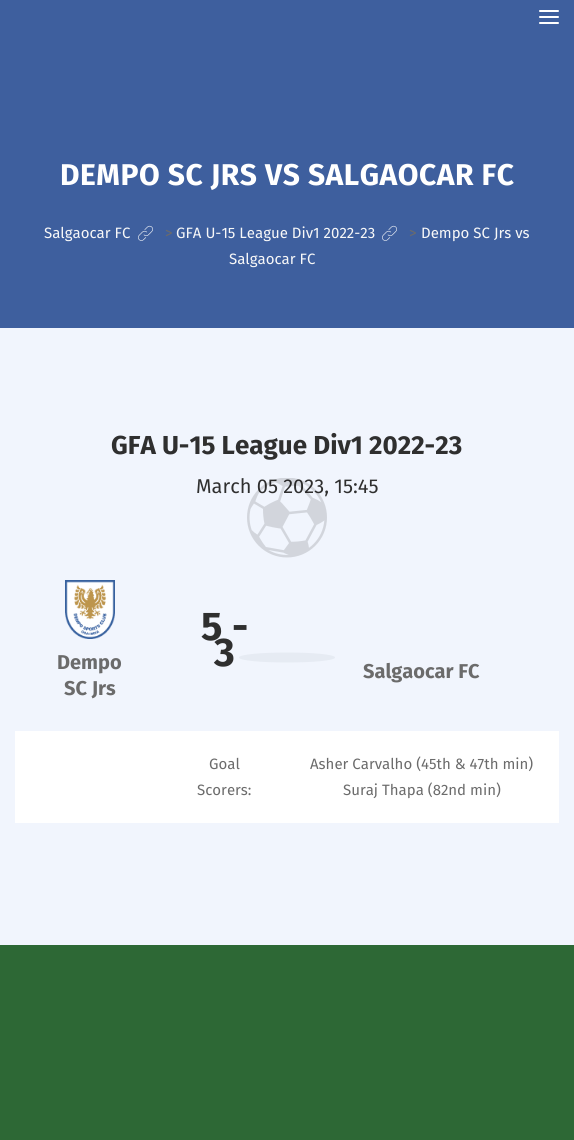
#include <cairo.h>
#include <math.h>
#include <stddef.h>

typedef struct { const char *family; double size; int italic, bold; unsigned color; } style_t;
static cairo_t *ctx;

static void ink(unsigned color) {
    cairo_set_source_rgb(ctx, (color >> 16) / 255.0, (color >> 8 & 255) / 255.0, (color & 255) / 255.0);
}

static void write(double x, double y, const char *s, const style_t *st) {
    cairo_select_font_face(ctx, st->family, st->italic ? CAIRO_FONT_SLANT_ITALIC : CAIRO_FONT_SLANT_NORMAL,
        st->bold ? CAIRO_FONT_WEIGHT_BOLD : CAIRO_FONT_WEIGHT_NORMAL);
    cairo_set_font_size(ctx, st->size);
    ink(st->color);
    cairo_move_to(ctx, x, y);
    cairo_show_text(ctx, s);
}

static void write_spaced(double x, double y, const char *s, double letter, double word) {
    cairo_move_to(ctx, x, y);
    while (*s) {
        char ch[5] = {0};
        int n = 0;
        do ch[n++] = *s++; while ((*s & 0xC0) == 0x80);
        cairo_show_text(ctx, ch);
        cairo_rel_move_to(ctx, letter + word * (*ch == ' '), 0);
    }
}

static void block(double x, double y, double w, double h, unsigned color) {
    ink(color);
    cairo_rectangle(ctx, x, y, w, h);
    cairo_fill(ctx);
}

static void round_path(double x, double y, double w, double h, double r) {
    cairo_new_sub_path(ctx);
    cairo_arc(ctx, x + w - r, y + h - r, r, 0, M_PI / 2);
    cairo_arc(ctx, x + r, y + h - r, r, M_PI / 2, M_PI);
    cairo_arc(ctx, x + r, y + r, r, M_PI, 1.5 * M_PI);
    cairo_arc(ctx, x + w - r, y + r, r, 1.5 * M_PI, 2 * M_PI);
    cairo_close_path(ctx);
}

static void paste(const char *path, double x, double y, double w, double h) {
    cairo_surface_t *image = cairo_image_surface_create_from_png(path);
    cairo_save(ctx);
    cairo_set_source_surface(ctx, image, x, y);
    cairo_rectangle(ctx, x, y, w, h);
    cairo_fill(ctx);
    cairo_restore(ctx);
    cairo_surface_destroy(image);
}

static const style_t s1 = {"Fira Sans", 15, 0, 0, 0xf8f8f8};
static const style_t s2 = {"Fira Sans", 15, 0, 0, 0x6b6b6b};
static const style_t s3 = {"Fira Sans", 26, 0, 1, 0x2f2f2f};
static const style_t s4 = {"Fira Sans", 20, 0, 0, 0x2f2f2f};
static const style_t s5 = {"Fira Sans", 40, 0, 1, 0x2f2f2f};
static const style_t s6 = {"Fira Sans", 20, 0, 1, 0x6b6b6b};

int main(void) {
    cairo_surface_t *surface = cairo_image_surface_create(CAIRO_FORMAT_RGB24, 574, 1140);
    ctx = cairo_create(surface);
    cairo_font_options_t *options = cairo_font_options_create();
    cairo_font_options_set_hint_metrics(options, CAIRO_HINT_METRICS_OFF);
    cairo_font_options_set_hint_style(options, CAIRO_HINT_STYLE_NONE);
    cairo_set_font_options(ctx, options);
    cairo_set_miter_limit(ctx, 4);
    ink(0xf1f5fd);
    cairo_paint(ctx);
    block(0, 0, 574, 328, 0x3e5f9e);
    ink(0xffffff);
    round_path(539, 10, 20, 2, 1);
    cairo_fill(ctx);
    round_path(539, 16, 20, 2, 1);
    cairo_fill(ctx);
    round_path(539, 22, 20, 2, 1);
    cairo_fill(ctx);
    cairo_select_font_face(ctx, "Fira Sans", CAIRO_FONT_SLANT_NORMAL, CAIRO_FONT_WEIGHT_BOLD);
    cairo_set_font_size(ctx, 30);
    write_spaced(60, 185, "DEMPO SC JRS VS SALGAOCAR FC", 0.5, 0);
    write(44, 238, "Salgaocar FC", &s1);
    paste("pic1.png", 138, 225, 15, 16);
    write(165, 238, ">", &s2);
    write(176, 238, "GFA U-15 League Div1 2022-23", &s1);
    paste("pic1.png", 382, 225, 15, 16);
    write(409, 238, ">", &s2);
    write(421, 238, "Dempo SC Jrs vs", &s1);
    write(229, 264, "Salgaocar FC", &s1);
    write(111, 454, "GFA U-15 League Div1 2022-23", &s3);
    write(196, 493, "March 05 2023, 15:45", &s4);
    write(201, 640, "5 -", &s5);
    write(214, 666, "3", &s5);
    paste("pic2.png", 65, 580, 50, 59);
    write(57, 669, "Dempo", &s6);
    write(64, 695, "SC Jrs", &s6);
    write(363, 678, "Salgaocar FC", &s6);
    block(15, 731, 544, 92, 0xffffff);
    write(209, 769, "Goal", &s2);
    write(197, 795, "Scorers:", &s2);
    write(310, 769, "Asher Carvalho (45th & 47th min)", &s2);
    write(343, 795, "Suraj Thapa (82nd min)", &s2);
    block(0, 945, 574, 195, 0x2d6835);
    paste("pic3.png", 247, 478, 80, 80);
    ink(0xe6ebf3);
    cairo_new_path(ctx);
    cairo_move_to(ctx, 287, 652.5);
    cairo_curve_to(ctx, 313.5, 652.5, 335, 654.5, 335, 657.5);
    cairo_curve_to(ctx, 335, 660.5, 313.5, 662.5, 287, 662.5);
    cairo_curve_to(ctx, 260.5, 662.5, 239, 660.5, 239, 657.5);
    cairo_curve_to(ctx, 239, 654.5, 260.5, 652.5, 287, 652.5);
    cairo_close_path(ctx);
    cairo_fill(ctx);
    cairo_surface_write_to_png(surface, "screenshot.png");
    cairo_font_options_destroy(options);
    cairo_destroy(ctx);
    cairo_surface_destroy(surface);
    return 0;
}
